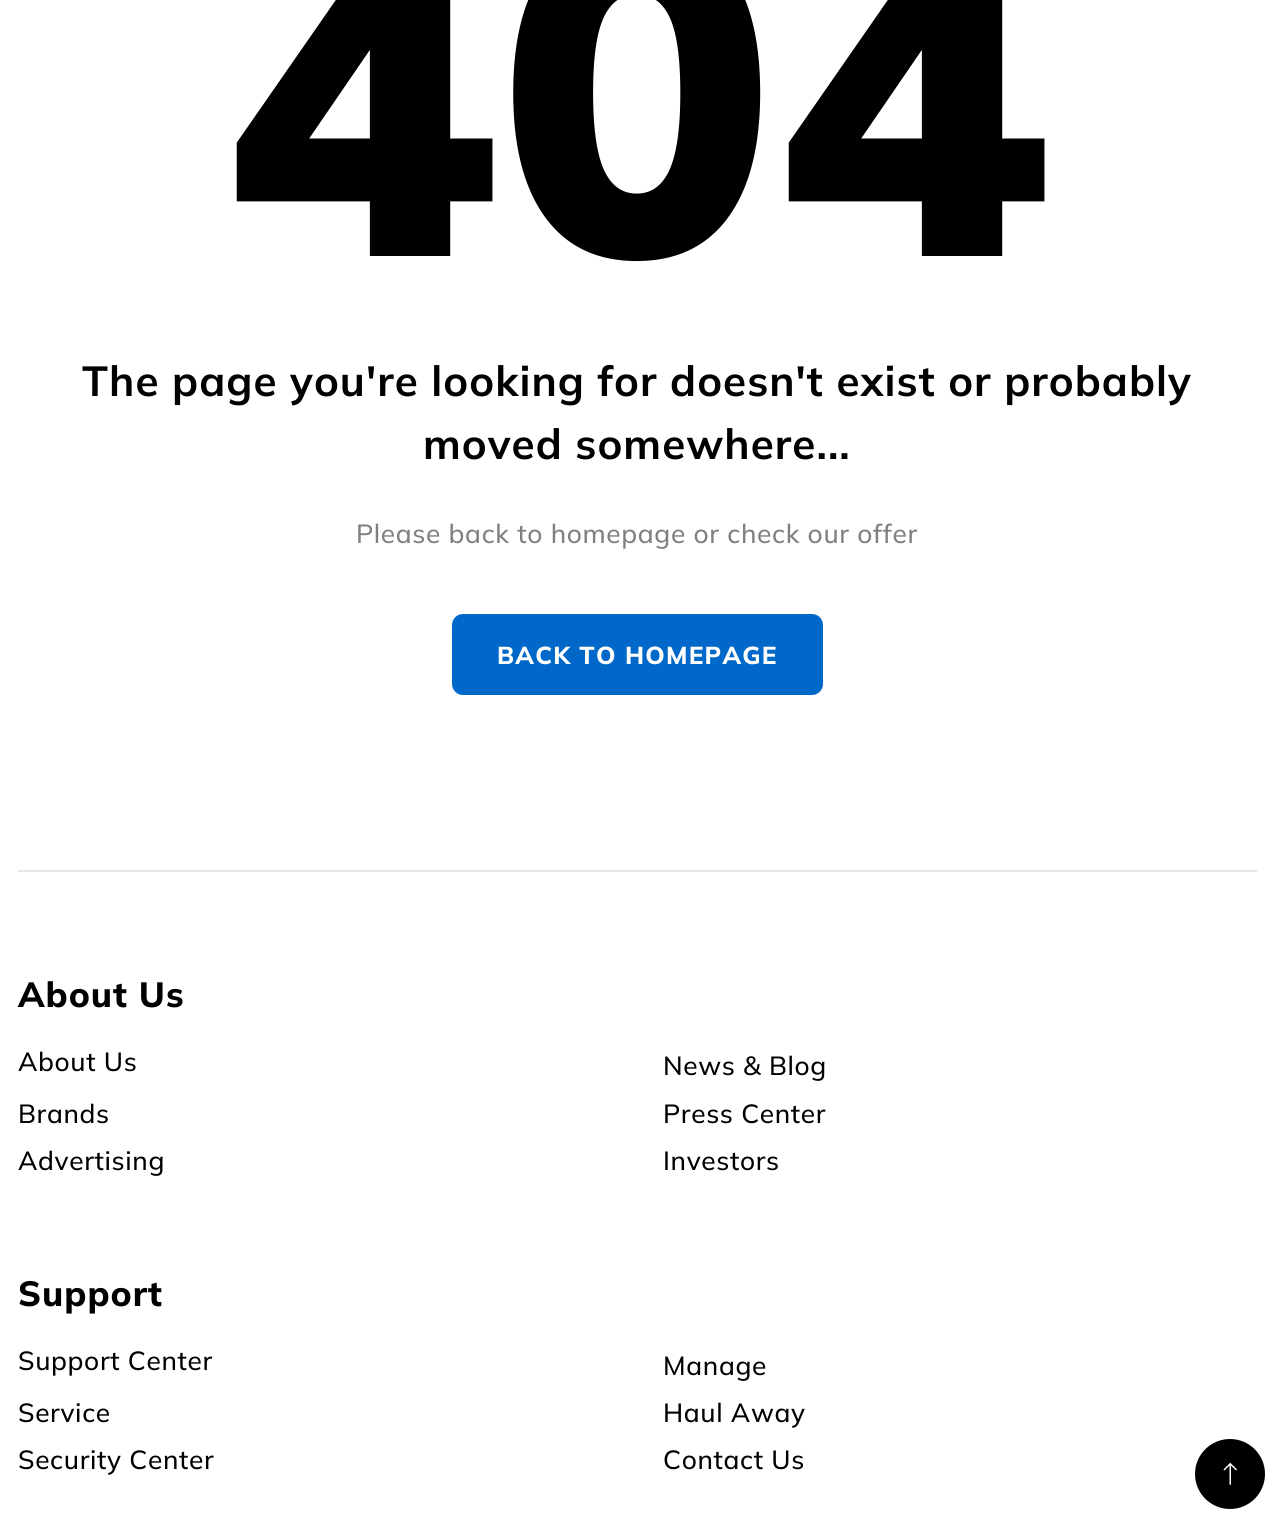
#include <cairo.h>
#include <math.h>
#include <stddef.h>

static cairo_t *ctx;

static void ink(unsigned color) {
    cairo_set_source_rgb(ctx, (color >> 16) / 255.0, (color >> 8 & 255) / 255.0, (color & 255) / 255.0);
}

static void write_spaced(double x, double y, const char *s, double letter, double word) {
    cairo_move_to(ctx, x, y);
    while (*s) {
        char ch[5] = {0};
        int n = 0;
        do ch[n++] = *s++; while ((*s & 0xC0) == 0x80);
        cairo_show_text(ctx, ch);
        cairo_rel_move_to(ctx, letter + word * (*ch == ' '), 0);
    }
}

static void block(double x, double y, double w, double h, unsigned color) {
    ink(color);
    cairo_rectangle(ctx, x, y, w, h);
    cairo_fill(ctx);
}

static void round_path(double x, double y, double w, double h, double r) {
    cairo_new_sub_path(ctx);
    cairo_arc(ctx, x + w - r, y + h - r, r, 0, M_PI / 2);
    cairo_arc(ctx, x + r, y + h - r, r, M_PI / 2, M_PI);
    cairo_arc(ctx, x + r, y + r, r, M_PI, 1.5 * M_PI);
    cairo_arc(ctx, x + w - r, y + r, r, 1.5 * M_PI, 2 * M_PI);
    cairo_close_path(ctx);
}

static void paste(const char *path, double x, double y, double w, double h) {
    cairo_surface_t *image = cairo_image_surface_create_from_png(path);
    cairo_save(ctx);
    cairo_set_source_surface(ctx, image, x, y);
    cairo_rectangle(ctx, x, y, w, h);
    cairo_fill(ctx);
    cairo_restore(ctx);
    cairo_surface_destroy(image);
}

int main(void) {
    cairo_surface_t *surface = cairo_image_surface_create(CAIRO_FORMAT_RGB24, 1273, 1516);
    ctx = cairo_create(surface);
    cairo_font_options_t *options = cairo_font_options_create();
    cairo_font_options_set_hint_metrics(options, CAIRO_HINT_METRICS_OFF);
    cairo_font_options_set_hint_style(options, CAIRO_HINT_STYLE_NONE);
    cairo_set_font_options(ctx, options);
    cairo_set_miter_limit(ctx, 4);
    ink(0xffffff);
    cairo_paint(ctx);
    cairo_select_font_face(ctx, "Mulish Black", CAIRO_FONT_SLANT_NORMAL, CAIRO_FONT_WEIGHT_NORMAL);
    cairo_set_font_size(ctx, 459);
    ink(0x000000);
    write_spaced(223, 256, "404", 0.65, 0);
    cairo_select_font_face(ctx, "Mulish", CAIRO_FONT_SLANT_NORMAL, CAIRO_FONT_WEIGHT_BOLD);
    cairo_set_font_size(ctx, 42);
    write_spaced(82, 396, "The page you're looking for doesn't exist or probably", 1.05, 0);
    write_spaced(423, 459, "moved somewhere...", 1.05, 0);
    cairo_select_font_face(ctx, "Mulish Medium", CAIRO_FONT_SLANT_NORMAL, CAIRO_FONT_WEIGHT_NORMAL);
    cairo_set_font_size(ctx, 26.25);
    ink(0x808080);
    write_spaced(356, 543, "Please back to homepage or check our offer", 0.65, 0);
    ink(0x0068c8);
    round_path(453, 615, 369, 79, 10);
    cairo_fill_preserve(ctx);
    cairo_stroke(ctx);
    cairo_select_font_face(ctx, "Mulish ExtraBold", CAIRO_FONT_SLANT_NORMAL, CAIRO_FONT_WEIGHT_NORMAL);
    cairo_set_font_size(ctx, 24.5);
    ink(0xffffff);
    write_spaced(497, 664, "BACK TO HOMEPAGE", 1.25, 0);
    block(18, 870, 1239, 2, 0xe6e6e6);
    cairo_set_font_size(ctx, 35);
    ink(0x000000);
    write_spaced(18, 1007, "About Us", 1, 0);
    cairo_select_font_face(ctx, "Mulish Medium", CAIRO_FONT_SLANT_NORMAL, CAIRO_FONT_WEIGHT_NORMAL);
    cairo_set_font_size(ctx, 26.25);
    write_spaced(18, 1071, "About Us", 0.65, 0);
    write_spaced(663, 1075, "News & Blog", 0.65, 0);
    write_spaced(18, 1123, "Brands", 0.65, 0);
    write_spaced(663, 1123, "Press Center", 0.65, 0);
    write_spaced(18, 1170, "Advertising", 0.65, 0);
    write_spaced(663, 1170, "Investors", 0.65, 0);
    cairo_select_font_face(ctx, "Mulish ExtraBold", CAIRO_FONT_SLANT_NORMAL, CAIRO_FONT_WEIGHT_NORMAL);
    cairo_set_font_size(ctx, 35);
    write_spaced(18, 1306, "Support", 1, 0);
    cairo_select_font_face(ctx, "Mulish Medium", CAIRO_FONT_SLANT_NORMAL, CAIRO_FONT_WEIGHT_NORMAL);
    cairo_set_font_size(ctx, 26.25);
    write_spaced(18, 1370, "Support Center", 0.65, 0);
    write_spaced(663, 1375, "Manage", 0.65, 0);
    write_spaced(18, 1422, "Service", 0.65, 0);
    write_spaced(663, 1422, "Haul Away", 0.65, 0);
    write_spaced(18, 1469, "Security Center", 0.65, 0);
    write_spaced(663, 1469, "Contact Us", 0.65, 0);
    cairo_new_path(ctx);
    cairo_arc(ctx, 1230, 1474, 35, 0, 2 * M_PI);
    cairo_fill(ctx);
    paste("pic1.png", 1223, 1463, 14, 22);
    cairo_surface_write_to_png(surface, "screenshot.png");
    cairo_font_options_destroy(options);
    cairo_destroy(ctx);
    cairo_surface_destroy(surface);
    return 0;
}
